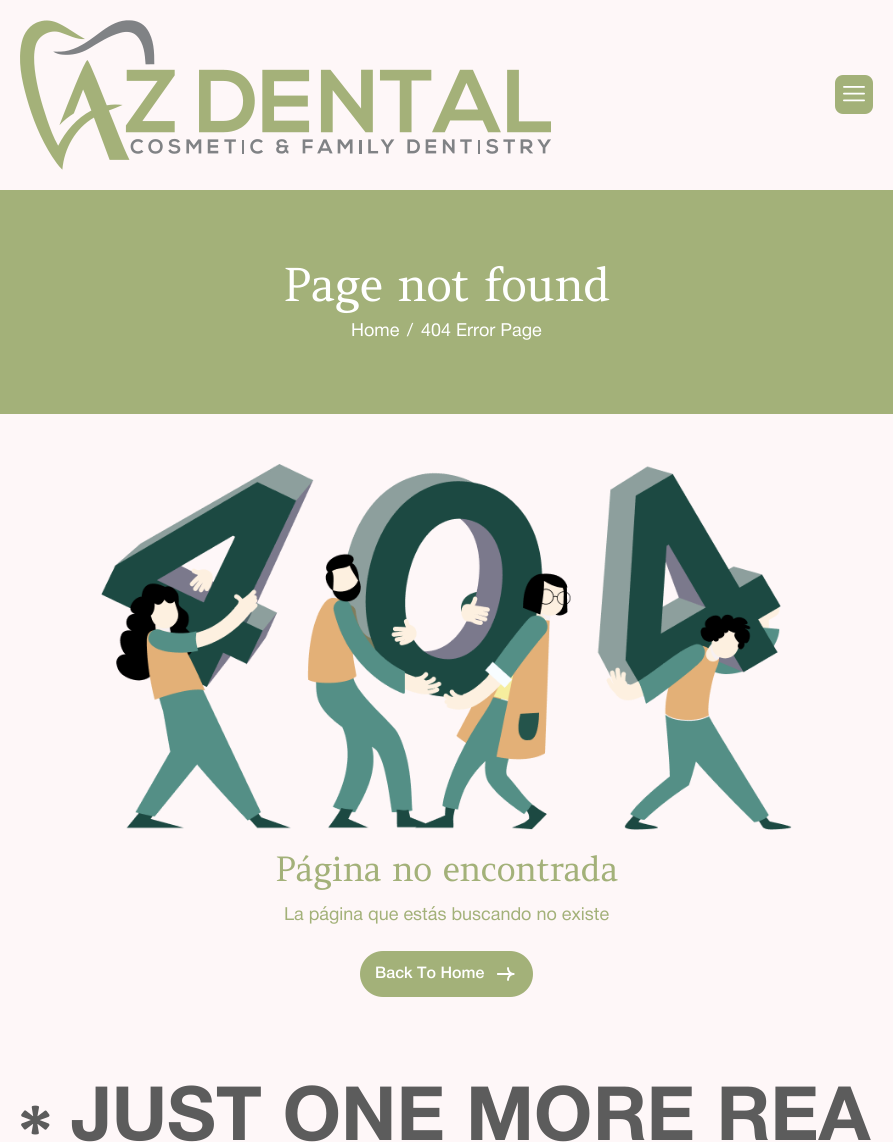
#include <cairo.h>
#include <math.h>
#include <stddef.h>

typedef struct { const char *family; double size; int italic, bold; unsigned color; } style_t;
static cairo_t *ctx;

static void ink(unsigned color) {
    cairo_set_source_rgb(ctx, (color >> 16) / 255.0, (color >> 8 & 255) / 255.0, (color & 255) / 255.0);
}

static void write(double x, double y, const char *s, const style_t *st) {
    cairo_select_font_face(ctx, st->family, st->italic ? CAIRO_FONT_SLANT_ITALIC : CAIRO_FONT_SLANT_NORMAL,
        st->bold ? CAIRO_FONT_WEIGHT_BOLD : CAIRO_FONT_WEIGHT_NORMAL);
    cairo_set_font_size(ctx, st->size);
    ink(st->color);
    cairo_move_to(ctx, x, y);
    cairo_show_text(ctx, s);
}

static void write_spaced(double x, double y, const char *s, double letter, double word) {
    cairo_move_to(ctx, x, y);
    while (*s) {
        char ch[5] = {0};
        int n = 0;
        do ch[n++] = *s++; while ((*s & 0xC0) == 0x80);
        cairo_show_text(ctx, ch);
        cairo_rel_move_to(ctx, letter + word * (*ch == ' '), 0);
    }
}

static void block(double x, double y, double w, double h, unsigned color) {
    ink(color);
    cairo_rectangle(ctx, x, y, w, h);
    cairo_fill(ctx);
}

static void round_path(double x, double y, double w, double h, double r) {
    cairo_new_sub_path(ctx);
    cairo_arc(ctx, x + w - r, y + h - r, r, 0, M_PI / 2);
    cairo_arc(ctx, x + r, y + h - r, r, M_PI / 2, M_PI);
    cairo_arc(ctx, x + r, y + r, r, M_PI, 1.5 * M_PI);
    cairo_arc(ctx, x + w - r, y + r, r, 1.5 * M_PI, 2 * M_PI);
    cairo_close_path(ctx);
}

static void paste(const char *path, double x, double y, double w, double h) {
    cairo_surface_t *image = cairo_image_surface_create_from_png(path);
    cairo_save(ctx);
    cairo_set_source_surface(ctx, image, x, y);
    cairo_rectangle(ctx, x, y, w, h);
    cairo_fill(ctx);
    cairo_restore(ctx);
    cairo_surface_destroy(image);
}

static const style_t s1 = {"Helvetica Neue", 18, 0, 0, 0xffffff};
static const style_t s2 = {"Helvetica Neue", 18, 0, 0, 0xa3b179};
static const style_t s3 = {"Helvetica Neue Medium", 16, 0, 0, 0xffffff};
static const style_t s4 = {"Helvetica Neue", 75, 0, 1, 0x5c5c5c};

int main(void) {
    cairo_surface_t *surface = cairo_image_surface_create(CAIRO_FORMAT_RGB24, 893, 1142);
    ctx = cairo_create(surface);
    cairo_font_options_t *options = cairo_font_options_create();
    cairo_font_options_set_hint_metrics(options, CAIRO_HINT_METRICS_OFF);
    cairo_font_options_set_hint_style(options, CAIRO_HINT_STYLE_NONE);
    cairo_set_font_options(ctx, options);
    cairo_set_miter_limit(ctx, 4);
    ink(0xfef7f8);
    cairo_paint(ctx);
    paste("pic1.png", 20, 20, 531, 150);
    ink(0xa3b179);
    round_path(835, 75, 38, 39, 8);
    cairo_fill(ctx);
    paste("pic2.png", 843, 86, 22, 16);
    block(0, 190, 893, 224, 0xa3b179);
    cairo_select_font_face(ctx, "Amethysta", CAIRO_FONT_SLANT_NORMAL, CAIRO_FONT_WEIGHT_NORMAL);
    cairo_set_font_size(ctx, 46);
    ink(0xffffff);
    write_spaced(283, 301, "Page not found", -0.9, 0);
    write(351, 336, "Home", &s1);
    write(407, 336, "/", &s1);
    write(421, 336, "404 Error Page", &s1);
    paste("pic3.png", 101, 464, 691, 366);
    cairo_select_font_face(ctx, "Amethysta", CAIRO_FONT_SLANT_NORMAL, CAIRO_FONT_WEIGHT_NORMAL);
    cairo_set_font_size(ctx, 34);
    ink(0xa3b179);
    write_spaced(275, 881, "Página no encontrada", -0.7, 0);
    write(284, 920, "La página que estás buscando no existe", &s2);
    round_path(360, 951, 173, 46, 23);
    cairo_fill(ctx);
    write(375, 978, "Back To Home", &s3);
    paste("pic4.png", 497, 967, 18, 14);
    paste("pic5.png", 21, 1105, 29, 30);
    write(70, 1140, "JUST ONE MORE REA", &s4);
    cairo_surface_write_to_png(surface, "screenshot.png");
    cairo_font_options_destroy(options);
    cairo_destroy(ctx);
    cairo_surface_destroy(surface);
    return 0;
}
